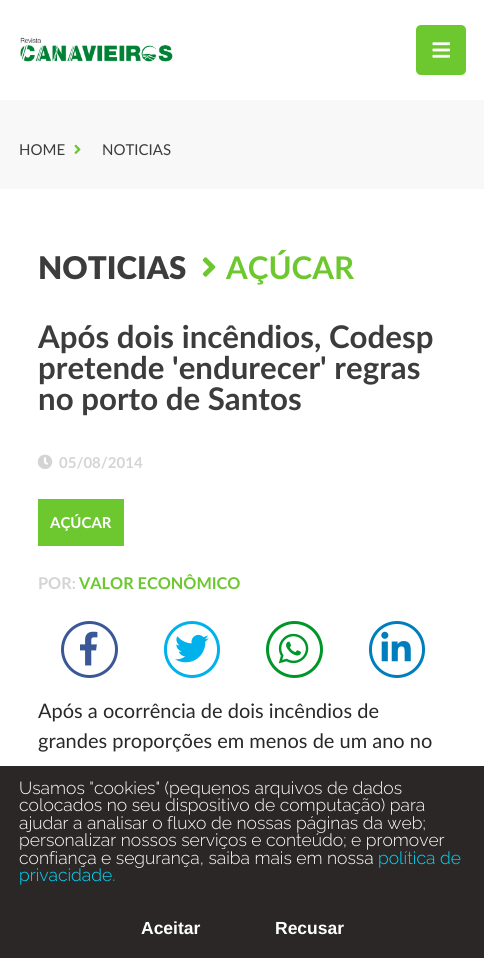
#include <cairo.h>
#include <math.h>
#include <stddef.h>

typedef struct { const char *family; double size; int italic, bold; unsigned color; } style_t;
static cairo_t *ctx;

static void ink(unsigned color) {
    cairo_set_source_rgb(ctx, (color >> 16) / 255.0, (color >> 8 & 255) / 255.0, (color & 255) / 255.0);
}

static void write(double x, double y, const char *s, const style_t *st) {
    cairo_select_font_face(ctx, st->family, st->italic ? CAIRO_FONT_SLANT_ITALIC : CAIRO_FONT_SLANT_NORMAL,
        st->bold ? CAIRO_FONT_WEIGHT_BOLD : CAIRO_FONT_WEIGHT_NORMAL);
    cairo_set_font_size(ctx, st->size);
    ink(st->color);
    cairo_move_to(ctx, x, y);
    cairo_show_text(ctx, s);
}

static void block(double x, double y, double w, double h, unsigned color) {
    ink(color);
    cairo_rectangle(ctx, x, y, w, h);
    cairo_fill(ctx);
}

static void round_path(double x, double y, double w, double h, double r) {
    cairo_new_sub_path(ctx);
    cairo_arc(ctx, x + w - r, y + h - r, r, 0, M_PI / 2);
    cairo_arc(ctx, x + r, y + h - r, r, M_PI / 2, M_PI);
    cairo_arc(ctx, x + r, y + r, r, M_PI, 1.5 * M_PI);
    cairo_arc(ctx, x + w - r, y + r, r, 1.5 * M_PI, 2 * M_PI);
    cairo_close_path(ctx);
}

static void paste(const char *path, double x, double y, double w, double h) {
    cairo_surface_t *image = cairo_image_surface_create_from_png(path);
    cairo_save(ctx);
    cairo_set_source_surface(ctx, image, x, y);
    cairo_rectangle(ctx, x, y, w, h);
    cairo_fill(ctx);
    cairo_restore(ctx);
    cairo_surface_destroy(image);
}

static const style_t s1 = {"Lato", 15, 0, 0, 0x3c3c3c};
static const style_t s2 = {"Lato Black", 31.25, 0, 0, 0x3c3c3c};
static const style_t s3 = {"Lato", 31.25, 0, 1, 0x6cc82e};
static const style_t s4 = {"Lato", 31.25, 0, 1, 0x3c3c3c};
static const style_t s5 = {"Lato", 15, 0, 1, 0xd4d4d4};
static const style_t s6 = {"Lato", 15, 0, 1, 0xffffff};
static const style_t s7 = {"Lato", 16.25, 0, 1, 0xd4d4d4};
static const style_t s8 = {"Lato", 16.25, 0, 1, 0x6cc82e};
static const style_t s9 = {"Lato", 20, 0, 0, 0x282828};
static const style_t s10 = {"Raleway Light", 17.5, 0, 0, 0xffffff};
static const style_t s11 = {"Raleway Light", 17.5, 0, 0, 0x00dcff};
static const style_t s12 = {"Liberation Sans", 17.5, 0, 1, 0xffffff};

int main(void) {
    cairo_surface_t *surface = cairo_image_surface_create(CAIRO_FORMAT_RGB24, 484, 958);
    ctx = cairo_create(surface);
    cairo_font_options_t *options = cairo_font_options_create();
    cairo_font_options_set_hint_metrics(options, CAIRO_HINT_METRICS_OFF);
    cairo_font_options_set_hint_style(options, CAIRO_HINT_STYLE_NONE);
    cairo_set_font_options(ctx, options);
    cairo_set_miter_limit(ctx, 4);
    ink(0xffffff);
    cairo_paint(ctx);
    paste("pic1.png", 20, 37, 153, 25);
    ink(0x6cc82e);
    round_path(416, 25, 50, 50, 5);
    cairo_fill(ctx);
    paste("pic2.png", 432, 42, 18, 16);
    block(0, 100, 484, 89, 0xf8f8f8);
    write(19, 155, "HOME", &s1);
    paste("pic3.png", 74, 144, 7, 10);
    write(102, 155, "NOTICIAS", &s1);
    write(38, 279, "NOTICIAS", &s2);
    paste("pic4.png", 202, 257, 14, 20);
    write(226, 279, "AÇÚCAR", &s3);
    write(38, 348, "Após dois incêndios, Codesp", &s4);
    write(38, 379, "pretende 'endurecer' regras", &s4);
    write(38, 410, "no porto de Santos", &s4);
    paste("pic5.png", 37, 454, 16, 15);
    write(59, 468, "05/08/2014", &s5);
    block(38, 499, 86, 47, 0x6cc82e);
    write(50, 528, "AÇÚCAR", &s6);
    write(38, 589, "POR:", &s7);
    write(79, 589, "VALOR ECONÔMICO", &s8);
    cairo_new_path(ctx);
    cairo_arc(ctx, 89.5, 649.5, 27, 0, 2 * M_PI);
    ink(0x3a5897);
    cairo_set_line_width(ctx, 3);
    cairo_stroke(ctx);
    paste("pic6.png", 80, 631, 18, 35);
    round_path(165.5, 622.5, 53, 54, 26.5);
    ink(0x00b1eb);
    cairo_stroke(ctx);
    paste("pic7.png", 175, 634, 34, 29);
    cairo_arc(ctx, 294.5, 649.5, 27, 0, 2 * M_PI);
    ink(0x009628);
    cairo_stroke(ctx);
    paste("pic8.png", 278, 633, 31, 31);
    round_path(370.5, 622.5, 53, 54, 26.5);
    ink(0x007dbc);
    cairo_stroke(ctx);
    paste("pic9.png", 381, 631, 30, 31);
    write(38, 718, "Após a ocorrência de dois incêndios de", &s9);
    write(38, 748, "grandes proporções em menos de um ano no", &s9);
    block(0, 766, 484, 192, 0x2b2727);
    write(19, 794, "Usamos \"cookies\" (pequenos arquivos de dados", &s10);
    write(19, 811, "colocados no seu dispositivo de computação) para", &s10);
    write(19, 829, "ajudar a analisar o fluxo de nossas páginas da web;", &s10);
    write(19, 846, "personalizar nossos serviços e conteúdo; e promover", &s10);
    write(19, 864, "confiança e segurança, saiba mais em nossa", &s10);
    write(378, 864, "política de", &s11);
    write(19, 881, "privacidade.", &s11);
    write(141, 934, "Aceitar", &s12);
    write(275, 934, "Recusar", &s12);
    cairo_surface_write_to_png(surface, "screenshot.png");
    cairo_font_options_destroy(options);
    cairo_destroy(ctx);
    cairo_surface_destroy(surface);
    return 0;
}
